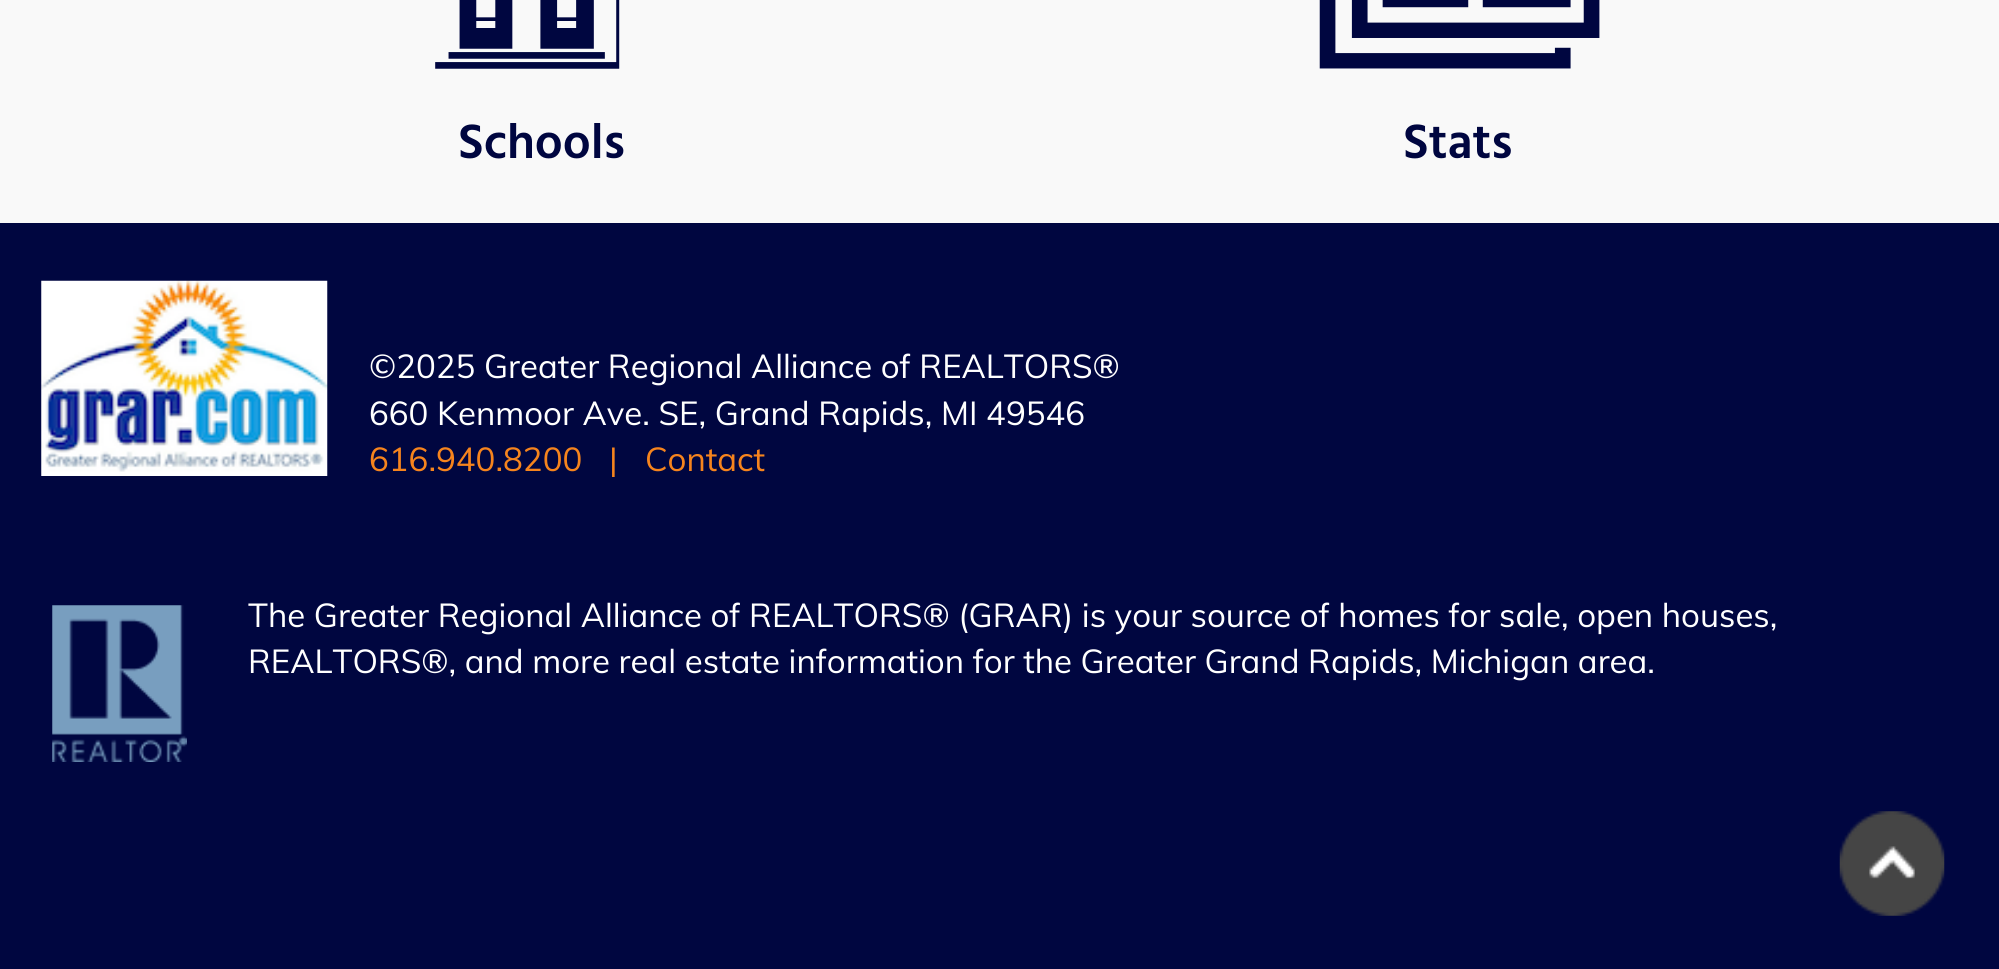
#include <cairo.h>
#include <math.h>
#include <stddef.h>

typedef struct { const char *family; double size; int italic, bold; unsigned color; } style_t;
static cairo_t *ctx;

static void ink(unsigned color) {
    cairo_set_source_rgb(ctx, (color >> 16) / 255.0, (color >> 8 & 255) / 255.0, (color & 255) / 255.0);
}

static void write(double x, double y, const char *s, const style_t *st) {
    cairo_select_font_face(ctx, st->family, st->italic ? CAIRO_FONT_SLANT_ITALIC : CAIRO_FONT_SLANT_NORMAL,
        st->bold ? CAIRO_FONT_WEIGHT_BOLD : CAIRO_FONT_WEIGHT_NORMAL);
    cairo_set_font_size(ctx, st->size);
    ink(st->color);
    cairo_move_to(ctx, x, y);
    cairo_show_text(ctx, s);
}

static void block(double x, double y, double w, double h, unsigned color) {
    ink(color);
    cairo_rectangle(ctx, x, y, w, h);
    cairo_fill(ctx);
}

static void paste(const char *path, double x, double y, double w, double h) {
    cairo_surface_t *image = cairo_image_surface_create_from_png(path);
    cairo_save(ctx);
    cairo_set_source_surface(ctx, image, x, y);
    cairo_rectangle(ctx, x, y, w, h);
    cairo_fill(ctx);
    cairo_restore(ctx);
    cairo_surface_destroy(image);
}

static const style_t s1 = {"Hind SemiBold", 49.5, 0, 0, 0x000640};
static const style_t s2 = {"Muli", 33, 0, 0, 0xffffff};
static const style_t s3 = {"Muli", 33, 0, 0, 0xf6841d};

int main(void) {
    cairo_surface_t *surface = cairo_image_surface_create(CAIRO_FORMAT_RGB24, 1999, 969);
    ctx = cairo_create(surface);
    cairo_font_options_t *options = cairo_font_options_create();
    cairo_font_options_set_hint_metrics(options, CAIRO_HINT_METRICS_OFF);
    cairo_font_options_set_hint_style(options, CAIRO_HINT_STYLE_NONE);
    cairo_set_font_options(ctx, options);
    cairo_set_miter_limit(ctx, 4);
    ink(0xf9f9f9);
    cairo_paint(ctx);
    paste("pic1.png", 435, 0, 185, 69);
    write(458, 158, "Schools", &s1);
    paste("pic2.png", 1319, 0, 281, 69);
    write(1403, 158, "Stats", &s1);
    block(0, 223, 1999, 746, 0x000640);
    paste("pic3.png", 41, 280, 287, 196);
    write(369, 378, "©2025 Greater Regional Alliance of REALTORS®", &s2);
    write(369, 425, "660 Kenmoor Ave. SE, Grand Rapids, MI 49546", &s2);
    write(369, 471, "616.940.8200", &s3);
    write(609, 471, "|", &s3);
    write(645, 471, "Contact", &s3);
    paste("pic4.png", 52, 605, 135, 157);
    write(248, 627, "The Greater Regional Alliance of REALTORS® (GRAR) is your source of homes for sale, open houses,", &s2);
    write(248, 673, "REALTORS®, and more real estate information for the Greater Grand Rapids, Michigan area.", &s2);
    paste("pic5.png", 1839, 811, 106, 105);
    cairo_surface_write_to_png(surface, "screenshot.png");
    cairo_font_options_destroy(options);
    cairo_destroy(ctx);
    cairo_surface_destroy(surface);
    return 0;
}
